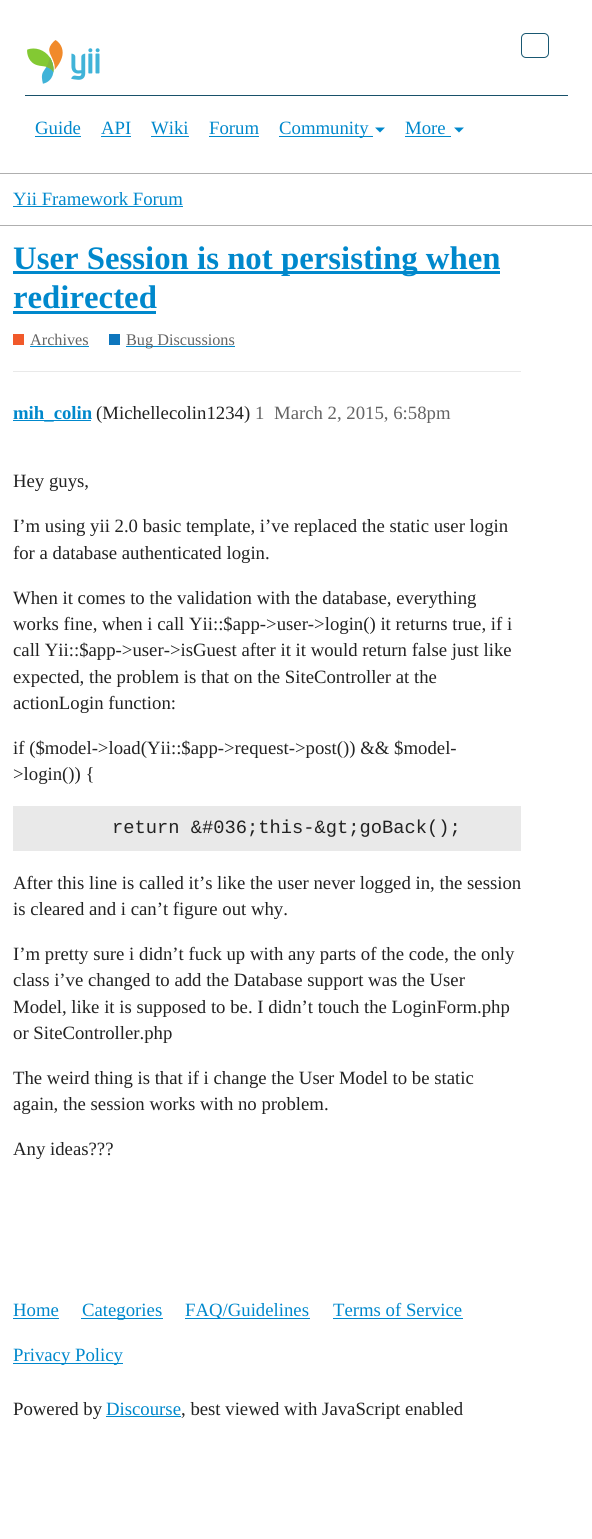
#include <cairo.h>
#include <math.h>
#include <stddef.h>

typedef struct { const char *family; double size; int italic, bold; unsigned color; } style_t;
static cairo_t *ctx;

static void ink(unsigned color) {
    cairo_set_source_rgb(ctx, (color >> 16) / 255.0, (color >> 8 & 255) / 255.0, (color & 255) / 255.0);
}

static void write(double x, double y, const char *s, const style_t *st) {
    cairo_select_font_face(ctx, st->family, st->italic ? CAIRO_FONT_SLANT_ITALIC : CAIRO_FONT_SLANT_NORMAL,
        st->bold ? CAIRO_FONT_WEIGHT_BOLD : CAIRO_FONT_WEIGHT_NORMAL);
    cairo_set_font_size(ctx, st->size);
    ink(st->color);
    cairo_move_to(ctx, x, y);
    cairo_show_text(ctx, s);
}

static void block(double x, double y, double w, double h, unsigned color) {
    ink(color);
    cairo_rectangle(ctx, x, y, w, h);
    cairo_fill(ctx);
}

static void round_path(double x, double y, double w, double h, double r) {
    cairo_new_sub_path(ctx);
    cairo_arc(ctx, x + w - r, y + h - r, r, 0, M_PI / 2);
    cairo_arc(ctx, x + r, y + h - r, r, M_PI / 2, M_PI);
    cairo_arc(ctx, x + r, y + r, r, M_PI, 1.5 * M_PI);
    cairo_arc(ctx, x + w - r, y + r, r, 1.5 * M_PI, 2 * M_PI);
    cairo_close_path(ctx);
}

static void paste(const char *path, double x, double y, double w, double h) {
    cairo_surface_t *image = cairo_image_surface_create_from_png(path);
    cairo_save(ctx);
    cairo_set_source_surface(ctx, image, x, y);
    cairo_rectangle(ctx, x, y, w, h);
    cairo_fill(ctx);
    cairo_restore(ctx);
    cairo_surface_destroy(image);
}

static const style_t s1 = {"Liberation Serif", 18.75, 0, 0, 0x0088cc};
static const style_t s2 = {"Liberation Serif", 32.8, 0, 1, 0x0088cc};
static const style_t s3 = {"Liberation Serif", 16.25, 0, 0, 0x646464};
static const style_t s4 = {"Liberation Serif", 18.75, 0, 1, 0x0088cc};
static const style_t s5 = {"Liberation Serif", 18.75, 0, 0, 0x222222};
static const style_t s6 = {"Liberation Serif", 18.75, 0, 0, 0x646464};
static const style_t s7 = {"Liberation Mono", 18.75, 0, 0, 0x222222};

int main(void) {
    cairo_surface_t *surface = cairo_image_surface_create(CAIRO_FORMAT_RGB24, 592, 1539);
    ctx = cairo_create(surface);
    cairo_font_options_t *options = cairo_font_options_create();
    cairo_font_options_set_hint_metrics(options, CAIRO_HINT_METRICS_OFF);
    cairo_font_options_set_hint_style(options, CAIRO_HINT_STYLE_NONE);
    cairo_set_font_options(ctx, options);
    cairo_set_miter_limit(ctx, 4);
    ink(0xffffff);
    cairo_paint(ctx);
    block(0, 173, 592, 1, 0xafafaf);
    paste("pic1.png", 27, 40, 73, 44);
    round_path(521.5, 33.5, 27, 24, 4.5);
    ink(0x195872);
    cairo_set_line_width(ctx, 1);
    cairo_stroke(ctx);
    block(25, 95, 543, 1, 0x18516a);
    write(35, 134, "Guide", &s1);
    block(35, 136, 46, 1, 0x0088cc);
    write(101, 134, "API", &s1);
    block(101, 136, 30, 1, 0x0088cc);
    write(151, 134, "Wiki", &s1);
    block(151, 136, 38, 1, 0x0088cc);
    write(209, 134, "Forum", &s1);
    block(209, 136, 50, 1, 0x0088cc);
    block(279, 136, 94, 1, 0x0088cc);
    write(279, 134, "Community", &s1);
    cairo_new_path(ctx);
    cairo_move_to(ctx, 375, 127.5);
    cairo_line_to(ctx, 385, 127.5);
    cairo_line_to(ctx, 380, 132.5);
    cairo_close_path(ctx);
    cairo_fill(ctx);
    write(405, 134, "More", &s1);
    block(405, 136, 46, 1, 0x0088cc);
    cairo_new_path(ctx);
    cairo_move_to(ctx, 454, 127.5);
    cairo_line_to(ctx, 464, 127.5);
    cairo_line_to(ctx, 459, 132.5);
    cairo_close_path(ctx);
    cairo_fill(ctx);
    block(0, 225, 592, 1, 0xafafaf);
    write(13, 205, "Yii Framework Forum", &s1);
    block(13, 206, 170, 1, 0x0088cc);
    block(13, 271, 487, 3, 0x0088cc);
    write(13, 269, "User Session is not persisting when", &s2);
    write(13, 308, "redirected", &s2);
    block(13, 311, 143, 3, 0x0088cc);
    block(13, 334, 11, 11, 0xf1592a);
    write(30, 345, "Archives", &s3);
    block(30, 346, 59, 1, 0x0088cc);
    block(109, 334, 11, 11, 0x0e76bd);
    block(126, 346, 109, 1, 0x0088cc);
    write(126, 345, "Bug Discussions", &s3);
    block(13, 371, 508, 1, 0xe9e9e9);
    block(13, 420, 78, 1, 0x0088cc);
    write(13, 419, "mih_colin", &s4);
    write(96, 419, "(Michellecolin1234)", &s5);
    write(255, 419, "1", &s6);
    write(274, 419, "March 2, 2015, 6:58pm", &s6);
    write(13, 487, "Hey guys,", &s5);
    write(13, 532, "I’m using yii 2.0 basic template, i’ve replaced the static user login", &s5);
    write(13, 559, "for a database authenticated login.", &s5);
    write(13, 604, "When it comes to the validation with the database, everything", &s5);
    write(13, 630, "works fine, when i call Yii::$app->user->login() it returns true, if i", &s5);
    write(13, 656, "call Yii::$app->user->isGuest after it it would return false just like", &s5);
    write(13, 683, "expected, the problem is that on the SiteController at the", &s5);
    write(13, 709, "actionLogin function:", &s5);
    write(13, 754, "if ($model->load(Yii::$app->request->post()) && $model-", &s5);
    write(13, 780, ">login()) {", &s5);
    block(13, 806, 508, 45, 0xe9e9e9);
    write(112, 833, "return &#036;this-&gt;goBack();", &s7);
    write(13, 889, "After this line is called it’s like the user never logged in, the session", &s5);
    write(13, 915, "is cleared and i can’t figure out why.", &s5);
    write(13, 960, "I’m pretty sure i didn’t fuck up with any parts of the code, the only", &s5);
    write(13, 986, "class i’ve changed to add the Database support was the User", &s5);
    write(13, 1013, "Model, like it is supposed to be. I didn’t touch the LoginForm.php", &s5);
    write(13, 1039, "or SiteController.php", &s5);
    cairo_save(ctx);
    cairo_rectangle(ctx, 13, 450, 508, 731);
    cairo_clip(ctx);
    write(13, 1084, "The weird thing is that if i change the User Model to be static", &s5);
    cairo_restore(ctx);
    write(13, 1110, "again, the session works with no problem.", &s5);
    write(13, 1155, "Any ideas?\077?", &s5);
    write(13, 1316, "Home", &s1);
    block(13, 1318, 46, 1, 0x0088cc);
    block(81, 1318, 82, 1, 0x0088cc);
    write(82, 1316, "Categories", &s1);
    block(185, 1318, 125, 1, 0x0088cc);
    write(185, 1316, "FAQ/Guidelines", &s1);
    write(333, 1316, "Terms of Service", &s1);
    block(333, 1318, 130, 1, 0x0088cc);
    block(13, 1363, 110, 1, 0x0088cc);
    write(13, 1361, "Privacy Policy", &s1);
    write(13, 1415, "Powered by", &s5);
    write(106, 1415, "Discourse", &s1);
    block(106, 1416, 75, 1, 0x0088cc);
    write(181, 1415, ", best viewed with JavaScript enabled", &s5);
    cairo_surface_write_to_png(surface, "screenshot.png");
    cairo_font_options_destroy(options);
    cairo_destroy(ctx);
    cairo_surface_destroy(surface);
    return 0;
}
